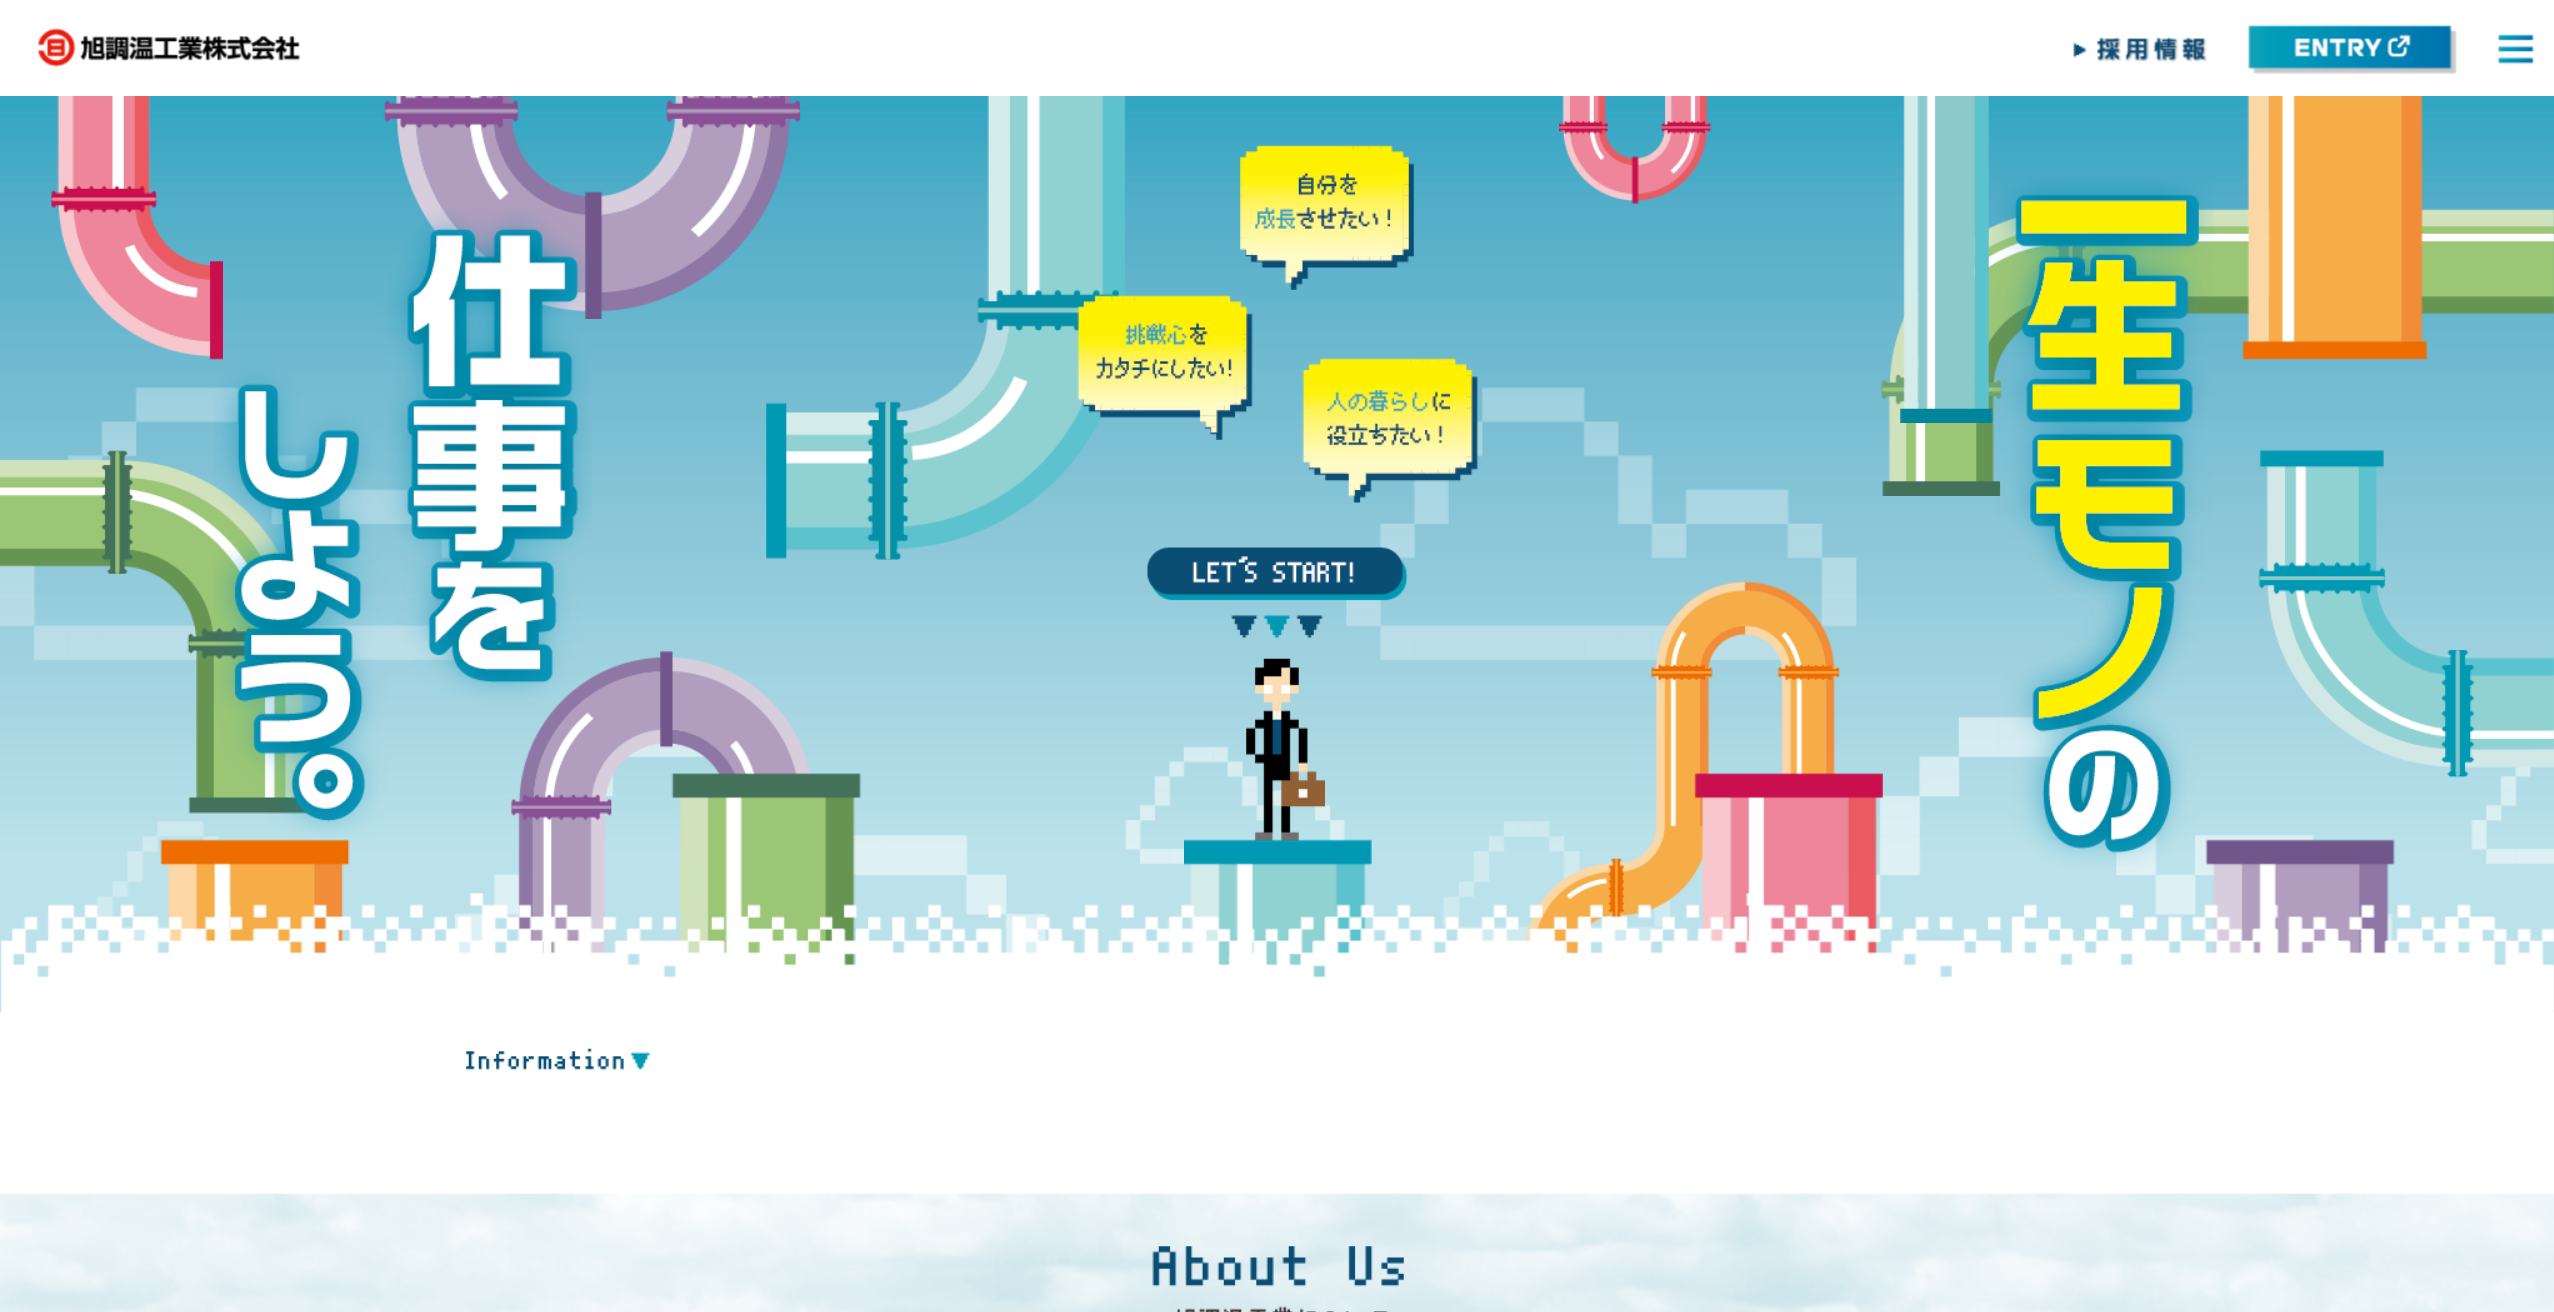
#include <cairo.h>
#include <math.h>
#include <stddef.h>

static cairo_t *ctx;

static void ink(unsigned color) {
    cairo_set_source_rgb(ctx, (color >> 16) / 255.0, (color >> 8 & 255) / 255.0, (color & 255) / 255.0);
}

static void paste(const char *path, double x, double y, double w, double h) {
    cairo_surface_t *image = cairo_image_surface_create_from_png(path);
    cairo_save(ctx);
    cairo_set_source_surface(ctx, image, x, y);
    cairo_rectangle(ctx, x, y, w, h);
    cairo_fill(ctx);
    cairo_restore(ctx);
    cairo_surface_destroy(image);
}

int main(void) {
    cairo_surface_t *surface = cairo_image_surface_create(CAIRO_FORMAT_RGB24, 2554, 1312);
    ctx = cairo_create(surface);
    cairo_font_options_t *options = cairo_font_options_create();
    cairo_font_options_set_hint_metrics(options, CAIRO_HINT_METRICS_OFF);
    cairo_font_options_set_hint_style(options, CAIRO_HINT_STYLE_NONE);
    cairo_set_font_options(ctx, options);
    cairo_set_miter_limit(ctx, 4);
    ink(0xffffff);
    cairo_paint(ctx);
    paste("pic1.png", 38, 28, 263, 39);
    paste("pic2.png", 2073, 37, 134, 25);
    paste("pic3.png", 2248, 24, 209, 50);
    paste("pic4.png", 2498, 34, 37, 31);
    paste("pic5.png", 0, 96, 2554, 917);
    paste("pic6.png", 51, 96, 172, 264);
    paste("pic7.png", 383, 96, 418, 223);
    paste("pic22.png", 0, 387, 2554, 567);
    paste("pic8.png", 766, 96, 370, 464);
    paste("pic9.png", 1559, 96, 153, 108);
    paste("pic12.png", 1881, 208, 673, 288);
    paste("pic10.png", 1900, 96, 93, 327);
    paste("pic11.png", 2242, 96, 186, 264);
    paste("pic13.png", 0, 450, 310, 364);
    paste("pic14.png", 511, 651, 301, 303);
    paste("pic15.png", 1526, 581, 314, 373);
    paste("pic16.png", 2258, 450, 296, 328);
    paste("pic17.png", 1240, 145, 174, 145);
    paste("pic18.png", 1077, 295, 176, 145);
    paste("pic19.png", 1302, 358, 176, 145);
    paste("pic20.png", 213, 208, 379, 630);
    paste("pic29.png", 2205, 839, 190, 115);
    paste("pic21.png", 1992, 175, 222, 692);
    paste("pic23.png", 1147, 547, 261, 91);
    paste("pic24.png", 1246, 658, 79, 184);
    paste("pic25.png", 160, 839, 190, 115);
    paste("pic26.png", 671, 773, 191, 193);
    paste("pic27.png", 1184, 839, 188, 139);
    paste("pic28.png", 1694, 773, 189, 181);
    paste("pic30.png", 0, 893, 2554, 120);
    paste("pic31.png", 466, 1048, 184, 22);
    paste("pic32.png", 0, 1193, 2554, 119);
    paste("pic33.png", 1152, 1246, 252, 66);
    cairo_surface_write_to_png(surface, "screenshot.png");
    cairo_font_options_destroy(options);
    cairo_destroy(ctx);
    cairo_surface_destroy(surface);
    return 0;
}
